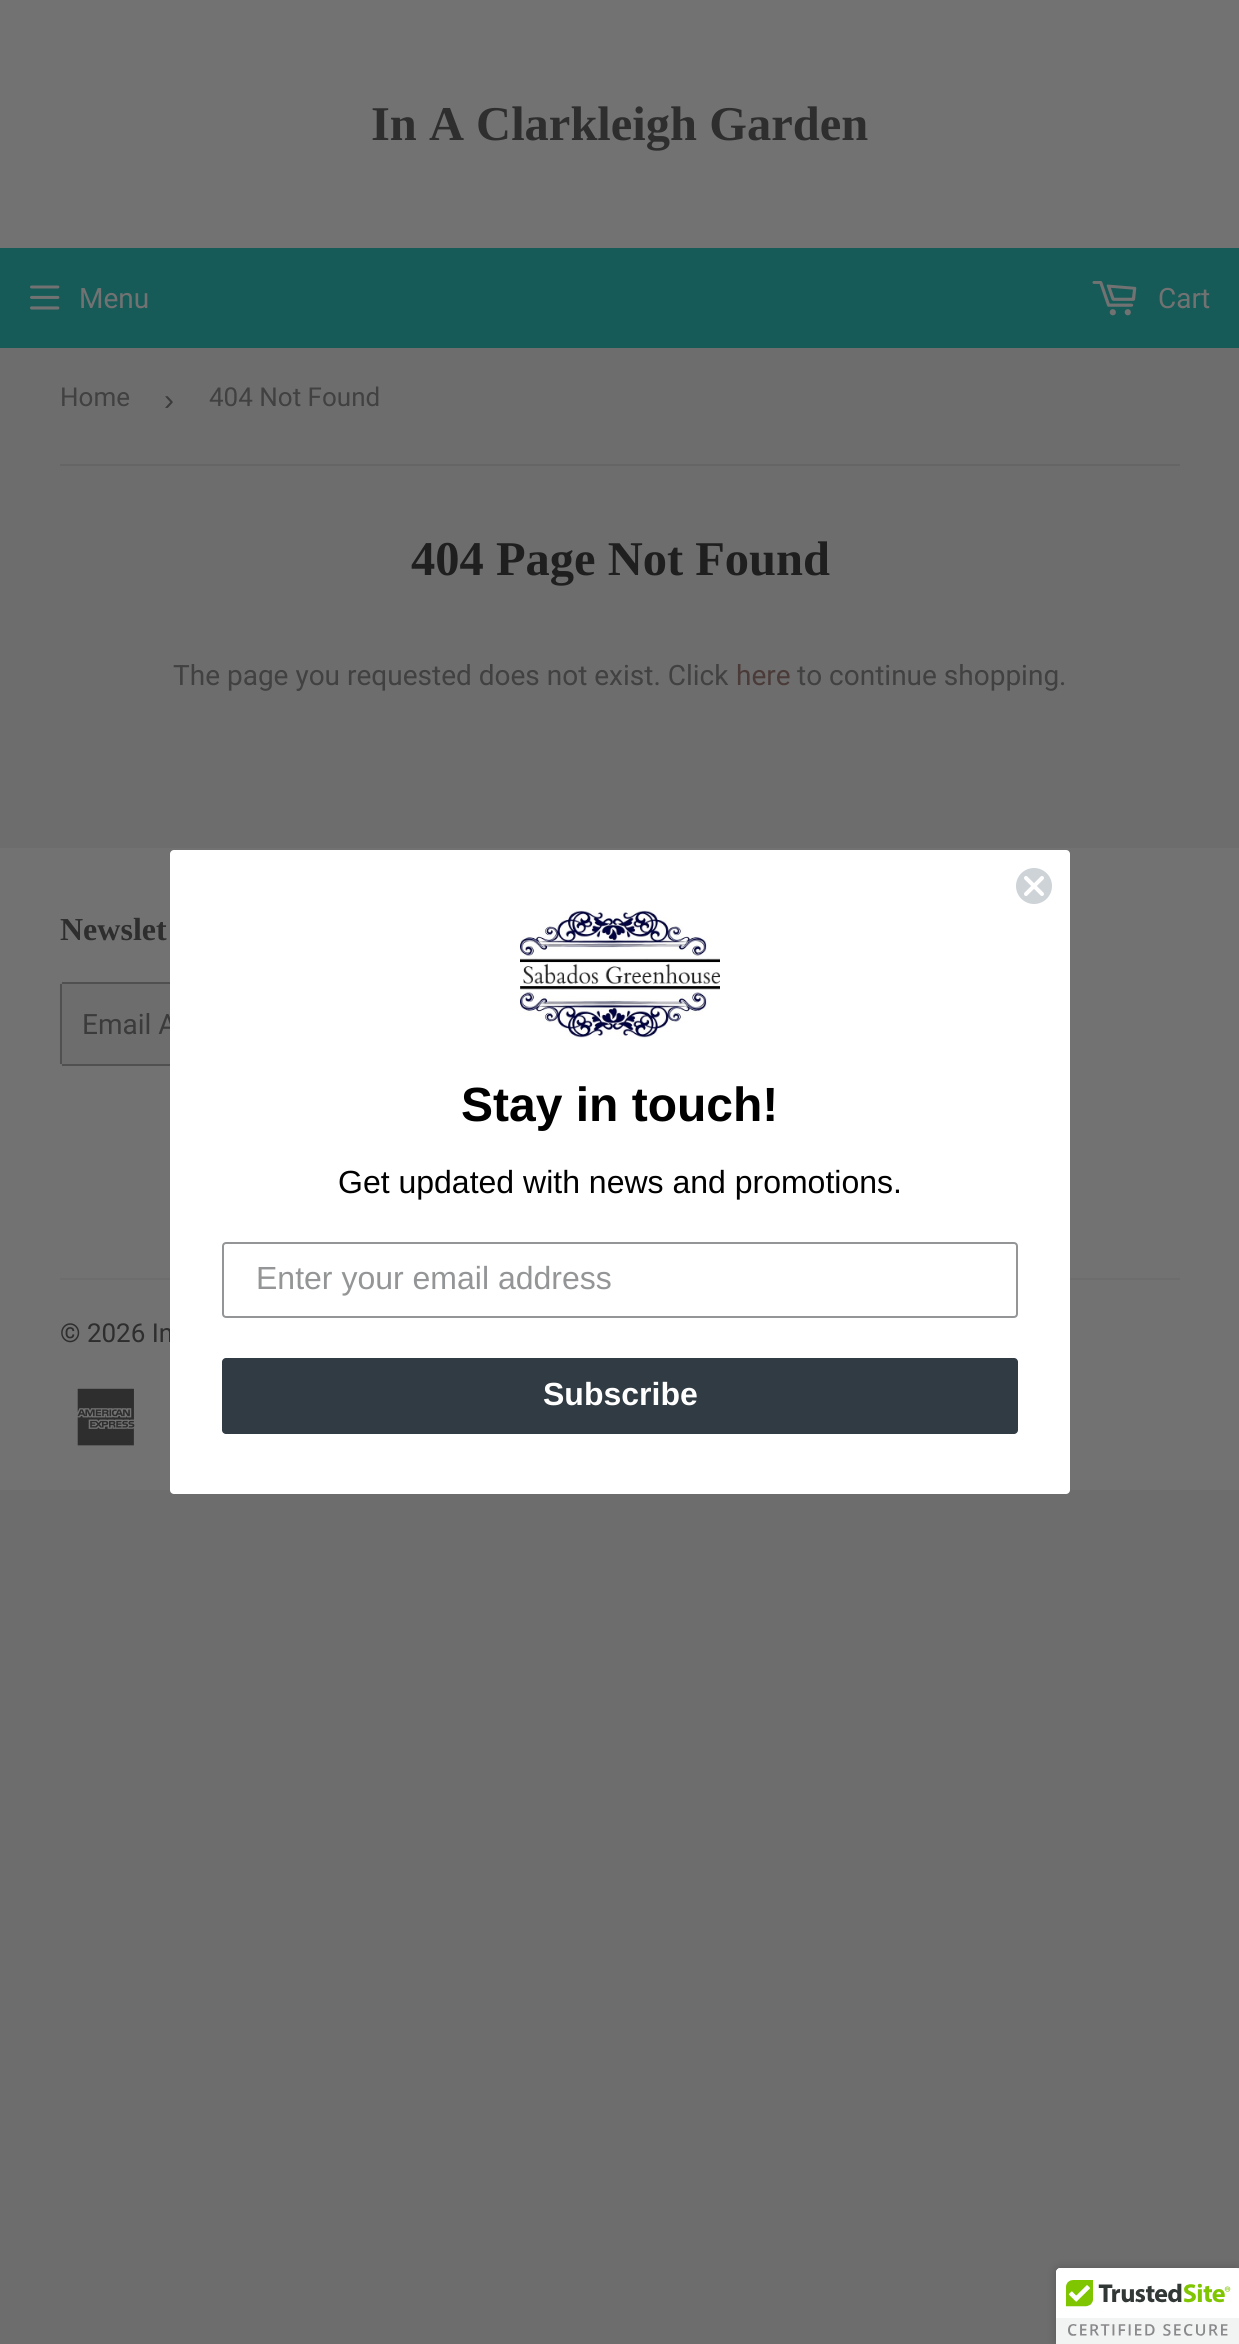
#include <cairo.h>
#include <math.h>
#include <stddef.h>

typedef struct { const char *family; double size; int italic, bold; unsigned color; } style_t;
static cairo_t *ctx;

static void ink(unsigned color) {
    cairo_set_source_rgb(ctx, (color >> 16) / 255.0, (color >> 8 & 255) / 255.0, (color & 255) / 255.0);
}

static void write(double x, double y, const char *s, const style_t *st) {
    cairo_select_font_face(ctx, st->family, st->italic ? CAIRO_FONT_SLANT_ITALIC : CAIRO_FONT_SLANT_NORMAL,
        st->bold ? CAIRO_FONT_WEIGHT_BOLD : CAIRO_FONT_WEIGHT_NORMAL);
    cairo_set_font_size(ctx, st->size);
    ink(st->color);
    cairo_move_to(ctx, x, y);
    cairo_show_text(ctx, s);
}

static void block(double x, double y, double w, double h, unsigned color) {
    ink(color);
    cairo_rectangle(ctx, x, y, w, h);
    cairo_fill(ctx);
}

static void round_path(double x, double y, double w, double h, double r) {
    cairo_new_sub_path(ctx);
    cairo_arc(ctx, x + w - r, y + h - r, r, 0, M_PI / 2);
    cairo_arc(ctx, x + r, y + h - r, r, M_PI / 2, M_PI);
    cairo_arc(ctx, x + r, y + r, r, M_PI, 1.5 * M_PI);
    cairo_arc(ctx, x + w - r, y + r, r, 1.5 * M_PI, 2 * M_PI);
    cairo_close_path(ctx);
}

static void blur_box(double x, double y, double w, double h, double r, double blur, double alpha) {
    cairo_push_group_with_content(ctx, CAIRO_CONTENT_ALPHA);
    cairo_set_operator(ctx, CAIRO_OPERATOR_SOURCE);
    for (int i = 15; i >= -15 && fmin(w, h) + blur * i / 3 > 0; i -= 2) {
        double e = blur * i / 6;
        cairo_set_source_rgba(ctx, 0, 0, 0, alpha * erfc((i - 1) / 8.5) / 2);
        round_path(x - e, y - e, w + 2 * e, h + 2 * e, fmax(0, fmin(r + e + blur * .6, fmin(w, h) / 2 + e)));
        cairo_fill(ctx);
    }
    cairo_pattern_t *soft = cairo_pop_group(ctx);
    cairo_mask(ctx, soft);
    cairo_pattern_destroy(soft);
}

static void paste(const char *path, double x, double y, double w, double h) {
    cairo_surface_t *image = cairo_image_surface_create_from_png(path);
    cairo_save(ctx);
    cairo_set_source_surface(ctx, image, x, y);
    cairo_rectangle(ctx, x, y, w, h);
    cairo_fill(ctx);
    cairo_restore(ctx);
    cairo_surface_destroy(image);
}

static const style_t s1 = {"Liberation Serif", 48.5, 0, 1, 0x2e2e2e};
static const style_t s2 = {"Roboto", 28, 0, 0, 0x727272};
static const style_t s3 = {"Roboto", 26, 0, 0, 0x414141};
static const style_t s4 = {"Liberation Sans", 30, 0, 0, 0x3b3b3b};
static const style_t s5 = {"Liberation Serif", 48.5, 0, 1, 0x1f1f1f};
static const style_t s6 = {"Roboto", 28, 0, 0, 0x414141};
static const style_t s7 = {"Roboto", 28, 0, 0, 0x4a3b38};
static const style_t s8 = {"Liberation Serif", 32, 0, 1, 0x2e2e2e};
static const style_t s9 = {"Roboto", 28, 0, 0, 0x3b3b3b};
static const style_t s10 = {"Roboto", 26, 0, 0, 0x2e2e2e};
static const style_t s11 = {"Liberation Sans", 48, 0, 1, 0x000000};
static const style_t s12 = {"Liberation Sans", 32, 0, 0, 0x000000};
static const style_t s13 = {"Liberation Sans", 32, 0, 0, 0x949596};
static const style_t s14 = {"Liberation Sans", 32, 0, 1, 0xffffff};

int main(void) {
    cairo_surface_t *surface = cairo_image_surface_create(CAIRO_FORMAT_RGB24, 1239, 2344);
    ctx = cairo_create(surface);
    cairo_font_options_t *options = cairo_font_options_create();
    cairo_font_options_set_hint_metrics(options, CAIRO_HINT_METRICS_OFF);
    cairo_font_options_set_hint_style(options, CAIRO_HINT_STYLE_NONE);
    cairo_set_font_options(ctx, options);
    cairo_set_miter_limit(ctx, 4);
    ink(0x6d6d6d);
    cairo_paint(ctx);
    block(0, 0, 1239, 248, 0x727272);
    write(371, 140, "In A Clarkleigh Garden", &s1);
    block(0, 248, 1239, 100, 0x165b58);
    paste("pic1.png", 30, 285, 30, 25);
    write(79, 308, "Menu", &s2);
    paste("pic2.png", 1092, 281, 45, 35);
    write(1158, 308, "Cart", &s2);
    block(60, 464, 1120, 2, 0x656565);
    write(60, 406, "Home", &s3);
    write(164, 410, "›", &s4);
    write(209, 406, "404 Not Found", &s3);
    write(411, 575, "404 Page Not Found", &s5);
    write(173, 685, "The page you requested does not exist. Click", &s6);
    write(736, 685, "here", &s7);
    write(797, 685, "to continue shopping.", &s6);
    block(0, 848, 1239, 642, 0x727272);
    write(60, 940, "Newslet", &s8);
    ink(0x6d6d6d);
    round_path(60, 982, 188, 84, 4);
    cairo_fill(ctx);
    block(62, 982, 108, 2, 0x505050);
    block(62, 1064, 108, 2, 0x505050);
    block(60, 984, 2, 80, 0x505050);
    write(82, 1034, "Email A", &s9);
    block(60, 1278, 1120, 2, 0x6d6d6d);
    write(60, 1342, "© 2026 In", &s10);
    paste("pic3.png", 77, 1388, 58, 58);
    ink(0xffffff);
    round_path(170, 850, 900, 644, 4);
    cairo_fill(ctx);
    ink(0xced3d8);
    cairo_arc(ctx, 1034, 886, 19, 0, 2 * M_PI);
    cairo_fill_preserve(ctx);
    ink(0xffffff);
    cairo_stroke(ctx);
    cairo_new_path(ctx);
    cairo_move_to(ctx, 1026, 878);
    cairo_line_to(ctx, 1042, 894);
    cairo_move_to(ctx, 1026, 894);
    cairo_line_to(ctx, 1042, 878);
    cairo_close_path(ctx);
    cairo_set_line_width(ctx, 4);
    cairo_set_line_cap(ctx, CAIRO_LINE_CAP_ROUND);
    cairo_set_line_join(ctx, CAIRO_LINE_JOIN_ROUND);
    cairo_stroke(ctx);
    paste("pic4.png", 520, 910, 200, 128);
    write(461, 1121, "Stay in touch!", &s11);
    write(338, 1193, "Get updated with news and promotions.", &s12);
    round_path(223, 1243, 794, 74, 3);
    ink(0x949596);
    cairo_set_line_width(ctx, 2);
    cairo_set_line_cap(ctx, CAIRO_LINE_CAP_BUTT);
    cairo_set_line_join(ctx, CAIRO_LINE_JOIN_MITER);
    cairo_stroke(ctx);
    write(256, 1289, "Enter your email address", &s13);
    ink(0x303b43);
    round_path(222, 1358, 796, 76, 4);
    cairo_fill(ctx);
    write(543, 1405, "Subscribe", &s14);
    ink(0x000000);
    blur_box(1056, 2268, 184, 76, 4, 5, 0.2);
    ink(0xffffff);
    cairo_new_path(ctx);
    cairo_move_to(ctx, 1060, 2268);
    cairo_line_to(ctx, 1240, 2268);
    cairo_line_to(ctx, 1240, 2344);
    cairo_line_to(ctx, 1056, 2344);
    cairo_line_to(ctx, 1056, 2272);
    cairo_curve_to(ctx, 1056, 2270, 1058, 2268, 1060, 2268);
    cairo_close_path(ctx);
    cairo_fill(ctx);
    paste("pic5.png", 1056, 2268, 183, 76);
    cairo_surface_write_to_png(surface, "screenshot.png");
    cairo_font_options_destroy(options);
    cairo_destroy(ctx);
    cairo_surface_destroy(surface);
    return 0;
}
